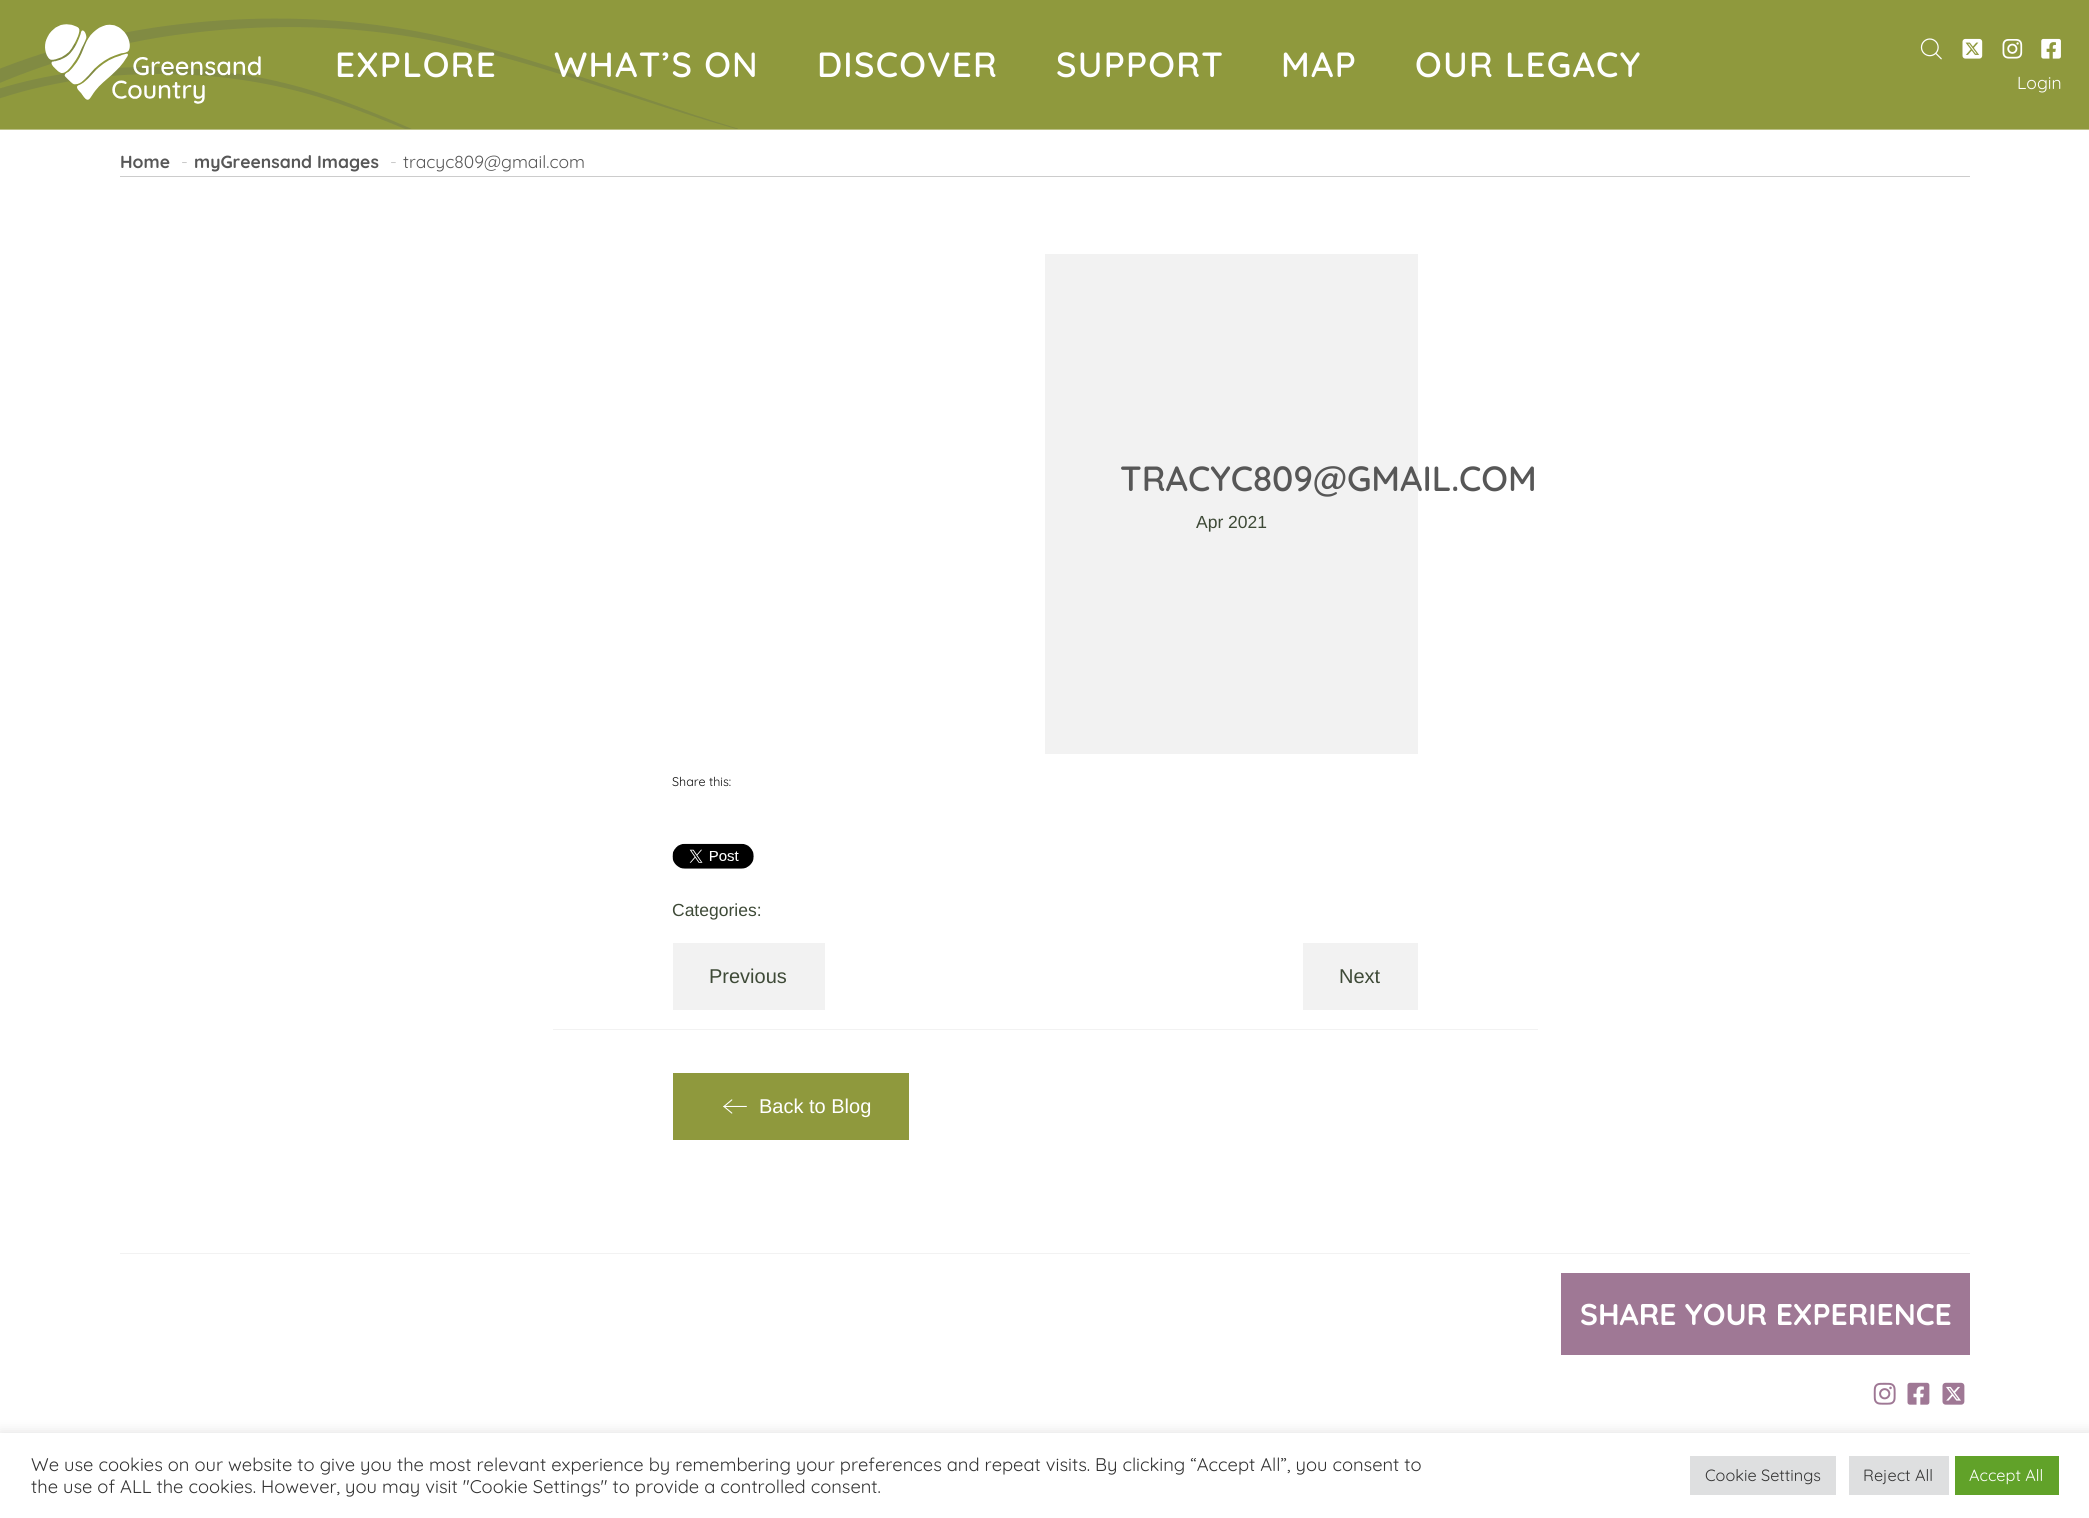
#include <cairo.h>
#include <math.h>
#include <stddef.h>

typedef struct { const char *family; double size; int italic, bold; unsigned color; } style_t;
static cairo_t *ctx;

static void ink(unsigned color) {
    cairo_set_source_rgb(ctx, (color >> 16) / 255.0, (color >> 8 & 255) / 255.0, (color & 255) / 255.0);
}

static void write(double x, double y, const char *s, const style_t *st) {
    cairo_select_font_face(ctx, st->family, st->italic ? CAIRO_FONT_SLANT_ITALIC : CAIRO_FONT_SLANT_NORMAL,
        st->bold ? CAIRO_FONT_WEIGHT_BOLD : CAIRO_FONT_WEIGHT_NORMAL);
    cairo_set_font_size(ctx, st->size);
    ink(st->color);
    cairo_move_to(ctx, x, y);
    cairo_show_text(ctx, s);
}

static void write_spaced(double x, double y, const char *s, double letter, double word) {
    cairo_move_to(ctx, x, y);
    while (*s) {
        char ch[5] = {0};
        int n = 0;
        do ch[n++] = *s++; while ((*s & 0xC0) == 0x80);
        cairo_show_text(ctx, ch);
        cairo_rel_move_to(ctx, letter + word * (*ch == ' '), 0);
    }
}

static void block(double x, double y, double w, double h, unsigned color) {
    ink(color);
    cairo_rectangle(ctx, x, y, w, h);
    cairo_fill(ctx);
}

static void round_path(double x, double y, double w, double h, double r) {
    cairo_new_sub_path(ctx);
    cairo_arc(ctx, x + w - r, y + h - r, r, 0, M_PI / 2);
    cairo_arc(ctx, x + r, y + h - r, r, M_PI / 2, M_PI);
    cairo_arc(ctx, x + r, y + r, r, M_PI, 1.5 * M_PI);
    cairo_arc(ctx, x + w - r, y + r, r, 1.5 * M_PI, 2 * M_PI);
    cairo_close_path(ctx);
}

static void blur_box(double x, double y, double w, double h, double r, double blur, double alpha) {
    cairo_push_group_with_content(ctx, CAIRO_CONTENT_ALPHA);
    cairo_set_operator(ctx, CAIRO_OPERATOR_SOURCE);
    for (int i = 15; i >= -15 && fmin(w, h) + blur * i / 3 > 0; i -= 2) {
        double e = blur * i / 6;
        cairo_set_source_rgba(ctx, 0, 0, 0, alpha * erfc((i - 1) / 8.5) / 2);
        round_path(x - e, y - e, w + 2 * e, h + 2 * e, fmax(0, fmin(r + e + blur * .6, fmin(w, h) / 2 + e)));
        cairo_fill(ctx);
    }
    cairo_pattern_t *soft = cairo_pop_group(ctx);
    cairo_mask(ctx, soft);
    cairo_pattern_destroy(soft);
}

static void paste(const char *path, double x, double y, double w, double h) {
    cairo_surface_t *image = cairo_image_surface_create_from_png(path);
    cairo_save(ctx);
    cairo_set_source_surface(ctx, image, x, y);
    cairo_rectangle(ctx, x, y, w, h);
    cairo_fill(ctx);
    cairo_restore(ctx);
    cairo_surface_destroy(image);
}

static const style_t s1 = {"Quicksand", 17.5, 0, 0, 0xffffff};
static const style_t s2 = {"Quicksand", 17.5, 0, 1, 0x575757};
static const style_t s3 = {"Quicksand", 17.5, 0, 0, 0xcacaca};
static const style_t s4 = {"Quicksand", 17.5, 0, 0, 0x575757};
static const style_t s5 = {"Quicksand SemiBold", 35, 0, 0, 0x575757};
static const style_t s6 = {"Liberation Sans", 17.5, 0, 0, 0x3e4a37};
static const style_t s7 = {"Quicksand", 12.5, 0, 0, 0x0a0a0a};
static const style_t s8 = {"Liberation Sans", 20, 0, 0, 0x3e4a37};
static const style_t s9 = {"Liberation Sans", 20, 0, 0, 0xffffff};
static const style_t s10 = {"Quicksand", 30, 0, 1, 0xffffff};
static const style_t s11 = {"Quicksand", 18.33, 0, 0, 0x333333};
static const style_t s12 = {"Quicksand", 16.25, 0, 0, 0x333333};
static const style_t s13 = {"Quicksand", 16.25, 0, 0, 0xffffff};

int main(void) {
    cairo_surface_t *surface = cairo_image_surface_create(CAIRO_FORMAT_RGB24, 2089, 1518);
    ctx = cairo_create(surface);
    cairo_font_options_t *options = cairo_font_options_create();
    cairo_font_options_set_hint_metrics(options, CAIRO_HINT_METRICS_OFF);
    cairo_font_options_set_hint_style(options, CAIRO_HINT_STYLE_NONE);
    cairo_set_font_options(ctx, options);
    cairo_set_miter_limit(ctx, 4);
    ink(0xffffff);
    cairo_paint(ctx);
    block(0, 0, 2089, 129, 0x8f993d);
    block(0, 129, 2089, 1, 0xbbc086);
    paste("pic1.png", 0, 18, 738, 111);
    paste("pic2.png", 45, 24, 216, 80);
    cairo_select_font_face(ctx, "Quicksand SemiBold", CAIRO_FONT_SLANT_NORMAL, CAIRO_FONT_WEIGHT_NORMAL);
    cairo_set_font_size(ctx, 35);
    ink(0xffffff);
    write_spaced(335, 77, "EXPLORE", 1.25, 0);
    write_spaced(554, 77, "WHAT’S ON", 1.25, 0);
    write_spaced(817, 77, "DISCOVER", 1.25, 0);
    write_spaced(1056, 77, "SUPPORT", 1.25, 0);
    write_spaced(1281, 77, "MAP", 1.25, 0);
    write_spaced(1415, 77, "OUR LEGACY", 1.25, 0);
    paste("pic3.png", 1920, 38, 22, 22);
    paste("pic4.png", 1962, 38, 21, 21);
    paste("pic5.png", 2002, 39, 21, 20);
    paste("pic6.png", 2041, 38, 20, 21);
    write(2017, 89, "Login", &s1);
    block(120, 176, 1850, 1, 0xcccccc);
    write(120, 168, "Home", &s2);
    write(181, 168, "-", &s3);
    write(194, 168, "myGreensand Images", &s2);
    write(390, 168, "-", &s3);
    write(403, 168, "tracyc809@gmail.com", &s4);
    block(1045, 254, 373, 500, 0xf2f2f2);
    write(1120, 491, "TRACYC809@GMAIL.COM", &s5);
    write(1196, 528, "Apr 2021", &s6);
    write(672, 786, "Share this:", &s7);
    paste("pic7.png", 672, 843, 82, 26);
    write(672, 916, "Categories:", &s6);
    block(553, 1029, 985, 1, 0xf2f2f2);
    block(673, 943, 152, 67, 0xf2f2f2);
    write(709, 983, "Previous", &s8);
    block(1303, 943, 115, 67, 0xf2f2f2);
    write(1339, 983, "Next", &s8);
    block(673, 1073, 236, 67, 0x8f993d);
    paste("pic8.png", 723, 1099, 24, 15);
    write(759, 1113, "Back to Blog", &s9);
    block(120, 1253, 1850, 1, 0xf2f2f2);
    block(1561, 1273, 409, 82, 0x9f7895);
    write(1580, 1325, "SHARE YOUR EXPERIENCE", &s10);
    paste("pic9.png", 1873, 1382, 23, 23);
    paste("pic10.png", 1907, 1382, 23, 23);
    paste("pic11.png", 1942, 1382, 23, 23);
    ink(0xacabab);
    blur_box(0, 1431, 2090, 87, 0, 6, 0.3);
    block(0, 1433, 2089, 85, 0xffffff);
    write(31, 1471, "We use cookies on our website to give you the most relevant experience by remembering your preferences and repeat visits. By clicking “Accept All”, you consent to", &s11);
    write(31, 1493, "the use of ALL the cookies. However, you may visit \"Cookie Settings\" to provide a controlled consent.", &s11);
    block(1690, 1456, 146, 39, 0xdedfe0);
    write(1705, 1481, "Cookie Settings", &s12);
    block(1849, 1456, 100, 39, 0xdedfe0);
    write(1863, 1481, "Reject All", &s12);
    block(1955, 1456, 104, 39, 0x61a229);
    write(1969, 1481, "Accept All", &s13);
    cairo_surface_write_to_png(surface, "screenshot.png");
    cairo_font_options_destroy(options);
    cairo_destroy(ctx);
    cairo_surface_destroy(surface);
    return 0;
}
